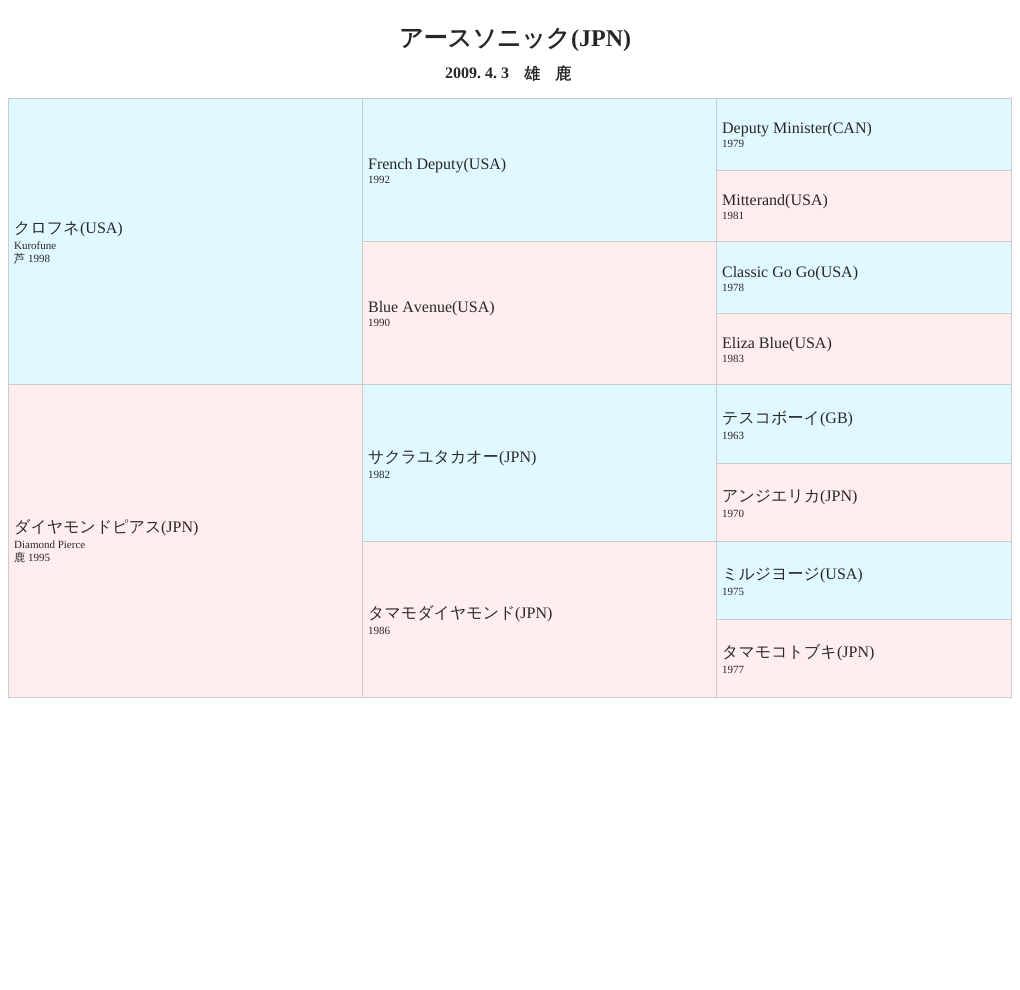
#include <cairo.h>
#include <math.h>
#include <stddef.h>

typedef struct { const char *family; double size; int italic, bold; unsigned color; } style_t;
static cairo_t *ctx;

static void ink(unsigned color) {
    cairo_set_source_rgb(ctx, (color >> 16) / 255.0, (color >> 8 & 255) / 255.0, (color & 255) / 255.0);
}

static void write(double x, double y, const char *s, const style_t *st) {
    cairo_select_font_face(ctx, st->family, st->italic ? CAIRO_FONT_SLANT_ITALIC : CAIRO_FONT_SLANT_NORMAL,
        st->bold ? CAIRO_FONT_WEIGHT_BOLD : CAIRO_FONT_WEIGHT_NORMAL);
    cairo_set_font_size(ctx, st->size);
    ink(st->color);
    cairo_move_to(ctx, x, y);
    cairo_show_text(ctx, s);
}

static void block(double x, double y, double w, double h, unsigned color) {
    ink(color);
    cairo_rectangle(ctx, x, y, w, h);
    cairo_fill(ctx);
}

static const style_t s1 = {"WenQuanYi Zen Hei", 24, 0, 1, 0x262626};
static const style_t s2 = {"Liberation Serif", 24, 0, 1, 0x262626};
static const style_t s3 = {"Liberation Serif", 16, 0, 1, 0x262626};
static const style_t s4 = {"WenQuanYi Zen Hei", 16, 0, 1, 0x262626};
static const style_t s5 = {"Liberation Serif", 16, 0, 0, 0x262626};
static const style_t s6 = {"Liberation Serif", 11, 0, 0, 0x262626};
static const style_t s7 = {"WenQuanYi Zen Hei Medium", 16, 0, 0, 0x262626};
static const style_t s8 = {"WenQuanYi Zen Hei Medium", 11, 0, 0, 0x262626};

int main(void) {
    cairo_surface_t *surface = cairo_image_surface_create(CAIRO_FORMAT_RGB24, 1020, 990);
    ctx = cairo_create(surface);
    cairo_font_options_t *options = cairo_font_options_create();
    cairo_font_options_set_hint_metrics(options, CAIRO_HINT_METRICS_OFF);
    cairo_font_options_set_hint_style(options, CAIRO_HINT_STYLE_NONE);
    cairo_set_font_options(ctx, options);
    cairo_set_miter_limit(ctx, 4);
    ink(0xffffff);
    cairo_paint(ctx);
    write(399, 46, "アースソニック", &s1);
    write(571, 46, "(JPN)", &s2);
    write(445, 78, "2009. 4. 3", &s3);
    write(524, 79, "雄", &s4);
    write(555, 79, "鹿", &s4);
    block(717, 99, 294, 71, 0xe0f8ff);
    block(716, 98, 296, 1, 0xcccccc);
    block(716, 170, 296, 1, 0xcccccc);
    block(716, 241, 296, 1, 0xcccccc);
    block(716, 313, 296, 1, 0xcccccc);
    block(716, 384, 296, 1, 0xcccccc);
    block(716, 463, 296, 1, 0xcccccc);
    block(716, 541, 296, 1, 0xcccccc);
    block(716, 619, 296, 1, 0xcccccc);
    block(1011, 619, 1, 79, 0xcccccc);
    block(1011, 541, 1, 79, 0xcccccc);
    block(1011, 463, 1, 79, 0xcccccc);
    block(1011, 384, 1, 80, 0xcccccc);
    block(1011, 313, 1, 72, 0xcccccc);
    block(1011, 241, 1, 73, 0xcccccc);
    block(1011, 170, 1, 72, 0xcccccc);
    block(1011, 98, 1, 73, 0xcccccc);
    block(716, 697, 296, 1, 0xcccccc);
    block(716, 619, 1, 79, 0xcccccc);
    block(716, 541, 1, 79, 0xcccccc);
    block(362, 541, 355, 1, 0xcccccc);
    block(716, 463, 1, 79, 0xcccccc);
    block(716, 384, 1, 80, 0xcccccc);
    block(362, 384, 355, 1, 0xcccccc);
    block(716, 313, 1, 72, 0xcccccc);
    block(716, 241, 1, 73, 0xcccccc);
    block(362, 241, 355, 1, 0xcccccc);
    block(716, 170, 1, 72, 0xcccccc);
    block(716, 98, 1, 73, 0xcccccc);
    write(722, 133, "Deputy Minister(CAN)", &s5);
    write(722, 147, "1979", &s6);
    block(363, 99, 353, 142, 0xe0f8ff);
    block(362, 98, 355, 1, 0xcccccc);
    block(362, 697, 355, 1, 0xcccccc);
    block(362, 541, 1, 157, 0xcccccc);
    block(362, 384, 1, 158, 0xcccccc);
    block(8, 384, 355, 1, 0xcccccc);
    block(362, 241, 1, 144, 0xcccccc);
    block(362, 98, 1, 144, 0xcccccc);
    write(368, 169, "French Deputy(USA)", &s5);
    write(368, 183, "1992", &s6);
    block(9, 99, 353, 285, 0xe0f8ff);
    block(8, 98, 355, 1, 0xcccccc);
    block(8, 697, 355, 1, 0xcccccc);
    block(8, 384, 1, 314, 0xcccccc);
    block(8, 98, 1, 287, 0xcccccc);
    write(14, 233, "クロフネ", &s7);
    write(80, 233, "(USA)", &s5);
    write(14, 249, "Kurofune", &s6);
    write(14, 262, "芦", &s8);
    write(28, 262, "1998", &s6);
    block(717, 171, 294, 70, 0xffeeed);
    write(722, 205, "Mitterand(USA)", &s5);
    write(722, 219, "1981", &s6);
    block(717, 242, 294, 71, 0xe0f8ff);
    write(722, 277, "Classic Go Go(USA)", &s5);
    write(722, 291, "1978", &s6);
    block(363, 242, 353, 142, 0xffeeed);
    write(368, 312, "Blue Avenue(USA)", &s5);
    write(368, 326, "1990", &s6);
    block(717, 314, 294, 70, 0xffeeed);
    write(722, 348, "Eliza Blue(USA)", &s5);
    write(722, 362, "1983", &s6);
    block(717, 385, 294, 78, 0xe0f8ff);
    write(722, 423, "テスコボーイ", &s7);
    write(820, 423, "(GB)", &s5);
    write(722, 439, "1963", &s6);
    block(363, 385, 353, 156, 0xe0f8ff);
    write(368, 462, "サクラユタカオー", &s7);
    write(499, 462, "(JPN)", &s5);
    write(368, 478, "1982", &s6);
    block(9, 385, 353, 312, 0xffeeed);
    write(14, 532, "ダイヤモンドピアス", &s7);
    write(161, 532, "(JPN)", &s5);
    write(14, 548, "Diamond Pierce", &s6);
    write(14, 561, "鹿", &s8);
    write(28, 561, "1995", &s6);
    block(717, 464, 294, 77, 0xffeeed);
    write(722, 501, "アンジエリカ", &s7);
    write(820, 501, "(JPN)", &s5);
    write(722, 517, "1970", &s6);
    block(717, 542, 294, 77, 0xe0f8ff);
    write(722, 579, "ミルジヨージ", &s7);
    write(820, 579, "(USA)", &s5);
    write(722, 595, "1975", &s6);
    block(363, 542, 353, 155, 0xffeeed);
    write(368, 618, "タマモダイヤモンド", &s7);
    write(515, 618, "(JPN)", &s5);
    write(368, 634, "1986", &s6);
    block(717, 620, 294, 77, 0xffeeed);
    write(722, 657, "タマモコトブキ", &s7);
    write(837, 657, "(JPN)", &s5);
    write(722, 673, "1977", &s6);
    cairo_surface_write_to_png(surface, "screenshot.png");
    cairo_font_options_destroy(options);
    cairo_destroy(ctx);
    cairo_surface_destroy(surface);
    return 0;
}
